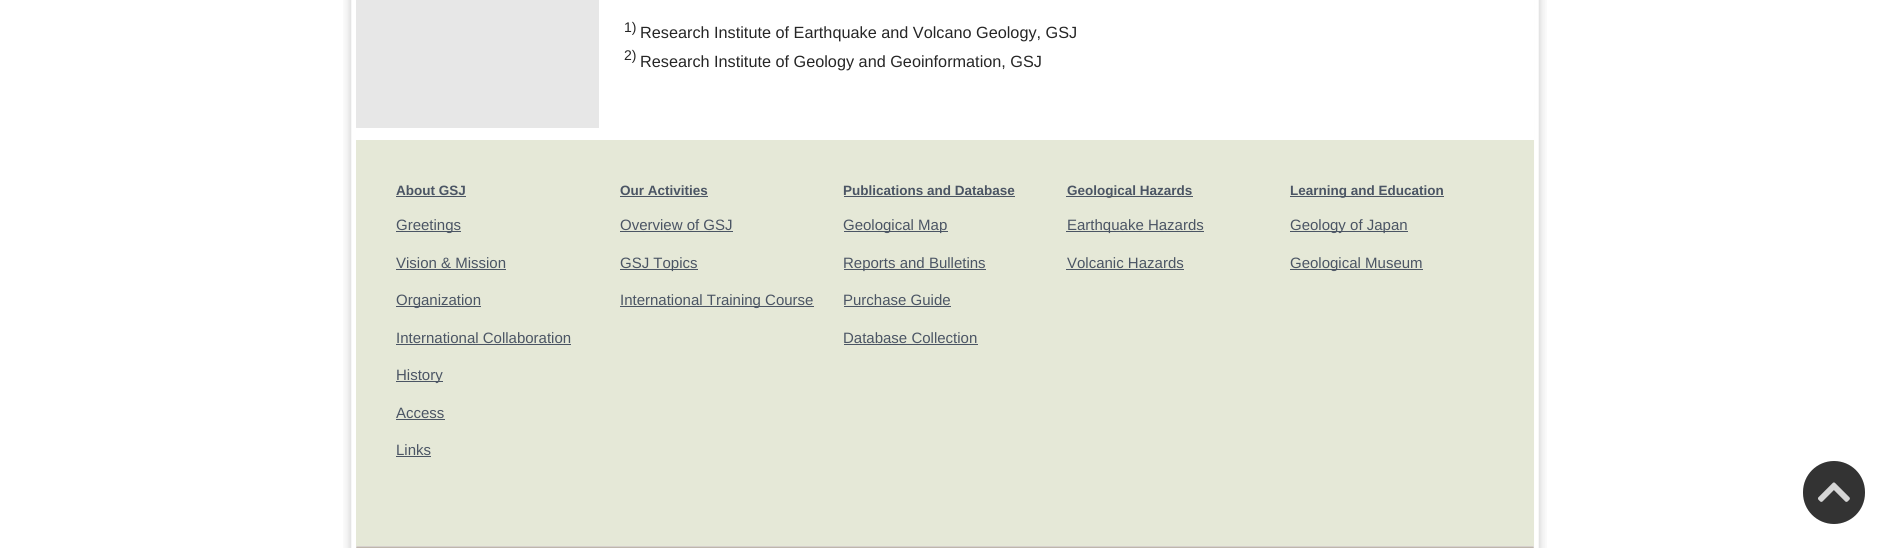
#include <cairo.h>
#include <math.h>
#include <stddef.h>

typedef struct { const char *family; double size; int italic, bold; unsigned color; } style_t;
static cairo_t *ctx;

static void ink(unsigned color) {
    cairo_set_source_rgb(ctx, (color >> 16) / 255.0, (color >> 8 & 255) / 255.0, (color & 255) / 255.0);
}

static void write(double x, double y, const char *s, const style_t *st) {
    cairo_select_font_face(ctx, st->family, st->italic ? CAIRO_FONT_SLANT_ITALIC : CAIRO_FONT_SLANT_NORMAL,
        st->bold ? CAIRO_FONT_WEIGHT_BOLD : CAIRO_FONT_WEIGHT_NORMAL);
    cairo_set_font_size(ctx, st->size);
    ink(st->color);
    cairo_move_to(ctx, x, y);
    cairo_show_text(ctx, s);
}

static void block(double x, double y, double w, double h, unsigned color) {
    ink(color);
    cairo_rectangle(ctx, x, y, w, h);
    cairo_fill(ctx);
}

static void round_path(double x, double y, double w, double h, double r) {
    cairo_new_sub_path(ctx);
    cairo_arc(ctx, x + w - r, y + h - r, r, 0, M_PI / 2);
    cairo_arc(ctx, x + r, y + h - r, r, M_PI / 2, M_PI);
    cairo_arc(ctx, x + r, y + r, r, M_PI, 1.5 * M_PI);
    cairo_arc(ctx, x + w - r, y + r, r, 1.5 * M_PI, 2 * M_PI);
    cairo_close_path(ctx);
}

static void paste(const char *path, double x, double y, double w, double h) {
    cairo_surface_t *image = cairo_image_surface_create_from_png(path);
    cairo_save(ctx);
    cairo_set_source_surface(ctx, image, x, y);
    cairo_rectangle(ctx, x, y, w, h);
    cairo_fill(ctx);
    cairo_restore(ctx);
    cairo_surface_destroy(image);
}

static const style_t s1 = {"Liberation Sans", 14, 0, 0, 0x262626};
static const style_t s2 = {"Liberation Sans", 16.25, 0, 0, 0x262626};
static const style_t s3 = {"Liberation Sans", 13.5, 0, 1, 0x4b5564};
static const style_t s4 = {"Liberation Sans", 15, 0, 0, 0x4b5564};

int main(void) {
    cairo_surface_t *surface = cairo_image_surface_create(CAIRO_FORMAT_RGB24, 1890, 548);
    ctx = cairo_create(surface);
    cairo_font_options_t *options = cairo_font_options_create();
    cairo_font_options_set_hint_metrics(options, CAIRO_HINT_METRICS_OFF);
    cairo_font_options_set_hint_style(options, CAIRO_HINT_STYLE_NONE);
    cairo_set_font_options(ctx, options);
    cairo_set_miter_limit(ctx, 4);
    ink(0xffffff);
    cairo_paint(ctx);
    paste("pic1.png", 343, 0, 1204, 548);
    block(356, 0, 243, 128, 0xe7e7e7);
    write(624, 32, "1)", &s1);
    write(640, 38, "Research Institute of Earthquake and Volcano Geology, GSJ", &s2);
    write(624, 60, "2)", &s1);
    write(640, 67, "Research Institute of Geology and Geoinformation, GSJ", &s2);
    block(356, 140, 1178, 406, 0xe5e8d7);
    write(396, 195, "About GSJ", &s3);
    block(396, 196, 70, 1, 0x4b5564);
    block(396, 231, 65, 1, 0x4b5564);
    write(396, 230, "Greetings", &s4);
    write(396, 268, "Vision & Mission", &s4);
    block(396, 269, 110, 1, 0x4b5564);
    block(396, 306, 85, 1, 0x4b5564);
    write(396, 305, "Organization", &s4);
    write(396, 343, "International Collaboration", &s4);
    block(396, 344, 175, 1, 0x4b5564);
    block(396, 381, 47, 1, 0x4b5564);
    write(396, 380, "History", &s4);
    write(396, 418, "Access", &s4);
    block(396, 419, 49, 1, 0x4b5564);
    write(396, 455, "Links", &s4);
    block(396, 456, 35, 1, 0x4b5564);
    write(620, 195, "Our Activities", &s3);
    block(620, 196, 88, 1, 0x4b5564);
    write(620, 230, "Overview of GSJ", &s4);
    block(620, 231, 113, 1, 0x4b5564);
    block(620, 269, 78, 1, 0x4b5564);
    write(620, 268, "GSJ Topics", &s4);
    block(620, 306, 194, 1, 0x4b5564);
    write(620, 305, "International Training Course", &s4);
    write(843, 195, "Publications and Database", &s3);
    block(844, 196, 171, 1, 0x4b5564);
    block(844, 231, 104, 1, 0x4b5564);
    write(843, 230, "Geological Map", &s4);
    block(844, 269, 142, 1, 0x4b5564);
    write(843, 268, "Reports and Bulletins", &s4);
    write(843, 305, "Purchase Guide", &s4);
    block(844, 306, 107, 1, 0x4b5564);
    write(843, 343, "Database Collection", &s4);
    block(844, 344, 134, 1, 0x4b5564);
    block(1066, 196, 127, 1, 0x4b5564);
    write(1067, 195, "Geological Hazards", &s3);
    block(1066, 231, 138, 1, 0x4b5564);
    write(1067, 230, "Earthquake Hazards", &s4);
    write(1067, 268, "Volcanic Hazards", &s4);
    block(1066, 269, 118, 1, 0x4b5564);
    block(1290, 196, 154, 1, 0x4b5564);
    write(1290, 195, "Learning and Education", &s3);
    block(1290, 231, 118, 1, 0x4b5564);
    write(1290, 230, "Geology of Japan", &s4);
    block(1290, 269, 133, 1, 0x4b5564);
    write(1290, 268, "Geological Museum", &s4);
    paste("pic2.png", 356, 546, 1178, 2);
    ink(0x333333);
    round_path(1803, 461, 62, 63, 31);
    cairo_fill(ctx);
    paste("pic3.png", 1818, 482, 32, 20);
    cairo_surface_write_to_png(surface, "screenshot.png");
    cairo_font_options_destroy(options);
    cairo_destroy(ctx);
    cairo_surface_destroy(surface);
    return 0;
}
